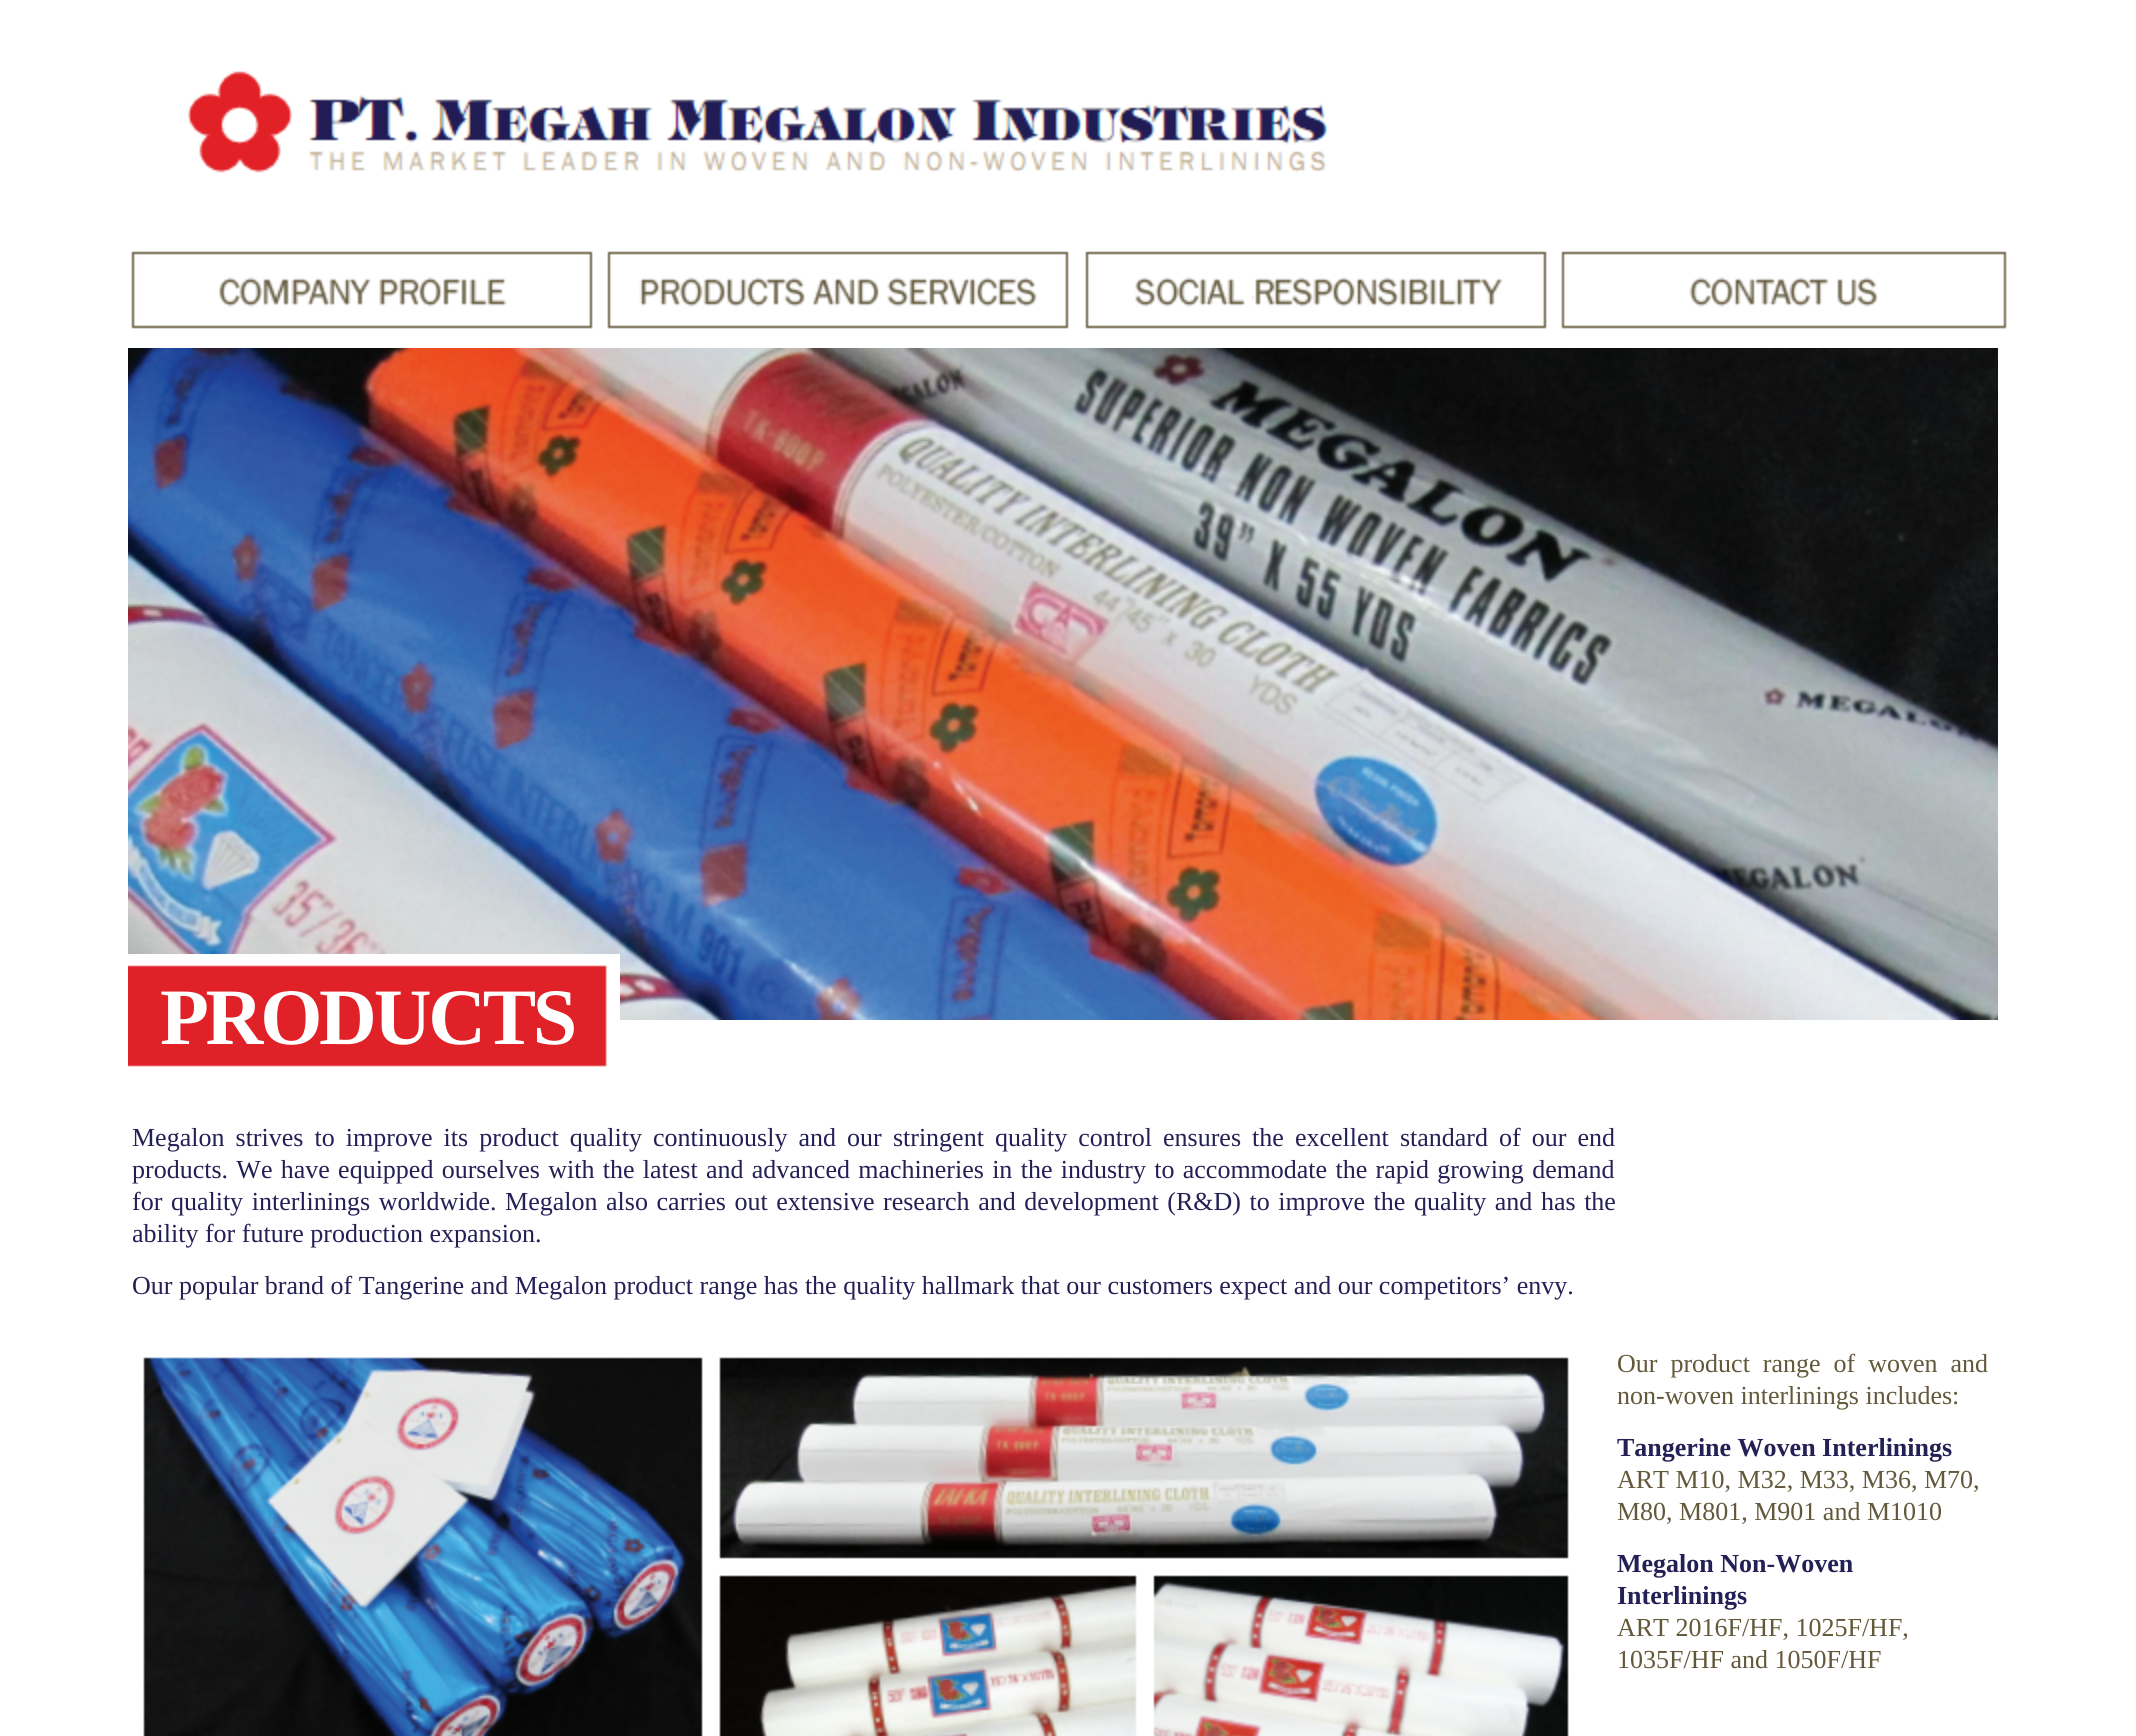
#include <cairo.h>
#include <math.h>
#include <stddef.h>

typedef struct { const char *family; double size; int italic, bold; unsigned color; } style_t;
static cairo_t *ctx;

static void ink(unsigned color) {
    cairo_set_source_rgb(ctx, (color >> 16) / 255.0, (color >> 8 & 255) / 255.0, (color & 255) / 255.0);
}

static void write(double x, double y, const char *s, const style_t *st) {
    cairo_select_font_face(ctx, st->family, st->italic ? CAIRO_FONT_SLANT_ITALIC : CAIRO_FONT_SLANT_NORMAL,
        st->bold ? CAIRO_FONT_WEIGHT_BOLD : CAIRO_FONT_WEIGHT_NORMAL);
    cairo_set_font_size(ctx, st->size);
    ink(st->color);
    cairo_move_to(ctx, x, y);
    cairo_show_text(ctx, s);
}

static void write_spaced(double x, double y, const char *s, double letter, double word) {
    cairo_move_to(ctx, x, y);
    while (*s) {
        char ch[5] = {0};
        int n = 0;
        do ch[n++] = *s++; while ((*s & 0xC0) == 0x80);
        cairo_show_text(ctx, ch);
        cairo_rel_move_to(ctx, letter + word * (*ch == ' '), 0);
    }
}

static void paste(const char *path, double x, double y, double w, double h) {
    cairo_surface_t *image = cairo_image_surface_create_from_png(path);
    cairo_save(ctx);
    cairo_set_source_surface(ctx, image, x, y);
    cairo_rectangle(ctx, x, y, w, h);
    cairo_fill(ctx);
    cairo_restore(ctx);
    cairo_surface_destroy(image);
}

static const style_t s1 = {"Liberation Serif", 26, 0, 0, 0x242056};
static const style_t s2 = {"Liberation Serif", 26, 0, 0, 0x635839};
static const style_t s3 = {"Liberation Serif", 26, 0, 1, 0x242056};

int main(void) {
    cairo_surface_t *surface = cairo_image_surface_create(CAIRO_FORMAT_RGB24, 2136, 1736);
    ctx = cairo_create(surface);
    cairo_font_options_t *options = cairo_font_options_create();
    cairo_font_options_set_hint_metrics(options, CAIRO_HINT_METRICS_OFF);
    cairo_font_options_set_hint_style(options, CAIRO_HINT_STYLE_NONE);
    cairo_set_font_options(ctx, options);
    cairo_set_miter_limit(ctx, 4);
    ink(0xffffff);
    cairo_paint(ctx);
    paste("pic1.png", 187, 71, 1141, 102);
    paste("pic2.png", 131, 251, 462, 78);
    paste("pic3.png", 607, 251, 462, 78);
    paste("pic4.png", 1085, 251, 462, 78);
    paste("pic5.png", 1561, 251, 446, 78);
    paste("pic6.png", 128, 348, 1870, 672);
    paste("pic7.png", 128, 954, 492, 113);
    cairo_select_font_face(ctx, "Liberation Serif", CAIRO_FONT_SLANT_NORMAL, CAIRO_FONT_WEIGHT_BOLD);
    cairo_set_font_size(ctx, 80);
    ink(0xffffff);
    write_spaced(160, 1044, "PRODUCTS", -3.25, 0);
    cairo_select_font_face(ctx, "Liberation Serif", CAIRO_FONT_SLANT_NORMAL, CAIRO_FONT_WEIGHT_NORMAL);
    cairo_set_font_size(ctx, 26);
    ink(0x242056);
    write_spaced(132, 1146, "Megalon strives to improve its product quality continuously and our stringent quality control ensures the excellent standard of our end", 0, 4.6);
    write_spaced(132, 1178, "products. We have equipped ourselves with the latest and advanced machineries in the industry to accommodate the rapid growing demand", 0, 1.8);
    write_spaced(132, 1210, "for quality interlinings worldwide. Megalon also carries out extensive research and development (R&D) to improve the quality and has the", 0, 2.1);
    write(132, 1242, "ability for future production expansion.", &s1);
    write(132, 1294, "Our popular brand of Tangerine and Megalon product range has the quality hallmark that our customers expect and our competitors’ envy.", &s1);
    paste("pic8.png", 143, 1357, 1426, 379);
    ink(0x635839);
    write_spaced(1617, 1372, "Our product range of woven and", 0, 6.5);
    write(1617, 1404, "non-woven interlinings includes:", &s2);
    write(1617, 1456, "Tangerine Woven Interlinings", &s3);
    write(1617, 1488, "ART M10, M32, M33, M36, M70,", &s2);
    write(1617, 1520, "M80, M801, M901 and M1010", &s2);
    write(1617, 1572, "Megalon Non-Woven", &s3);
    write(1617, 1604, "Interlinings", &s3);
    write(1617, 1636, "ART 2016F/HF, 1025F/HF,", &s2);
    write(1617, 1668, "1035F/HF and 1050F/HF", &s2);
    cairo_surface_write_to_png(surface, "screenshot.png");
    cairo_font_options_destroy(options);
    cairo_destroy(ctx);
    cairo_surface_destroy(surface);
    return 0;
}
